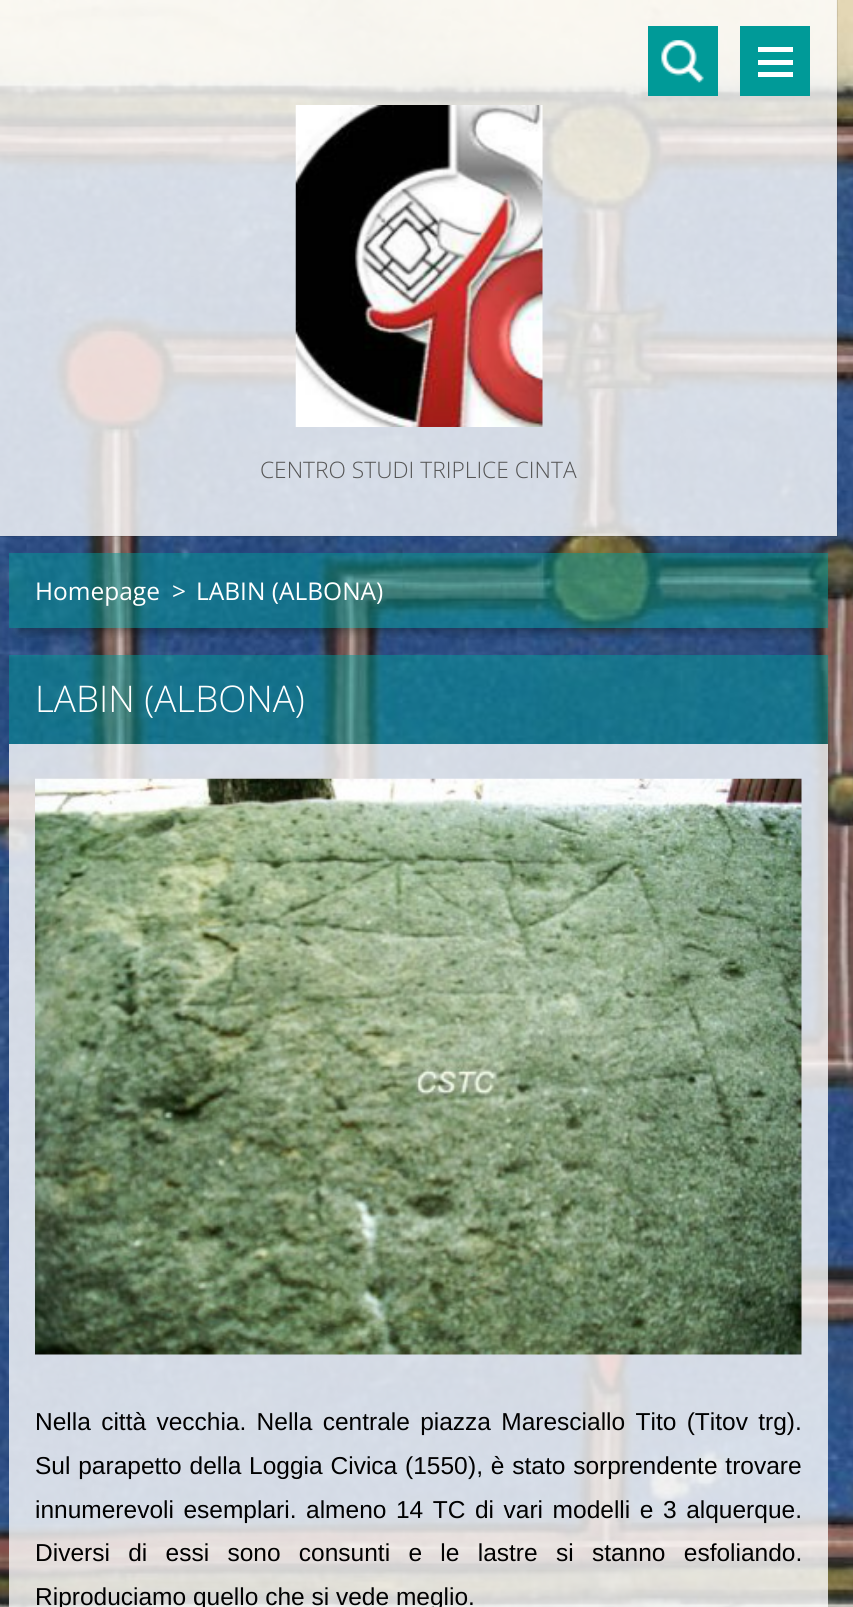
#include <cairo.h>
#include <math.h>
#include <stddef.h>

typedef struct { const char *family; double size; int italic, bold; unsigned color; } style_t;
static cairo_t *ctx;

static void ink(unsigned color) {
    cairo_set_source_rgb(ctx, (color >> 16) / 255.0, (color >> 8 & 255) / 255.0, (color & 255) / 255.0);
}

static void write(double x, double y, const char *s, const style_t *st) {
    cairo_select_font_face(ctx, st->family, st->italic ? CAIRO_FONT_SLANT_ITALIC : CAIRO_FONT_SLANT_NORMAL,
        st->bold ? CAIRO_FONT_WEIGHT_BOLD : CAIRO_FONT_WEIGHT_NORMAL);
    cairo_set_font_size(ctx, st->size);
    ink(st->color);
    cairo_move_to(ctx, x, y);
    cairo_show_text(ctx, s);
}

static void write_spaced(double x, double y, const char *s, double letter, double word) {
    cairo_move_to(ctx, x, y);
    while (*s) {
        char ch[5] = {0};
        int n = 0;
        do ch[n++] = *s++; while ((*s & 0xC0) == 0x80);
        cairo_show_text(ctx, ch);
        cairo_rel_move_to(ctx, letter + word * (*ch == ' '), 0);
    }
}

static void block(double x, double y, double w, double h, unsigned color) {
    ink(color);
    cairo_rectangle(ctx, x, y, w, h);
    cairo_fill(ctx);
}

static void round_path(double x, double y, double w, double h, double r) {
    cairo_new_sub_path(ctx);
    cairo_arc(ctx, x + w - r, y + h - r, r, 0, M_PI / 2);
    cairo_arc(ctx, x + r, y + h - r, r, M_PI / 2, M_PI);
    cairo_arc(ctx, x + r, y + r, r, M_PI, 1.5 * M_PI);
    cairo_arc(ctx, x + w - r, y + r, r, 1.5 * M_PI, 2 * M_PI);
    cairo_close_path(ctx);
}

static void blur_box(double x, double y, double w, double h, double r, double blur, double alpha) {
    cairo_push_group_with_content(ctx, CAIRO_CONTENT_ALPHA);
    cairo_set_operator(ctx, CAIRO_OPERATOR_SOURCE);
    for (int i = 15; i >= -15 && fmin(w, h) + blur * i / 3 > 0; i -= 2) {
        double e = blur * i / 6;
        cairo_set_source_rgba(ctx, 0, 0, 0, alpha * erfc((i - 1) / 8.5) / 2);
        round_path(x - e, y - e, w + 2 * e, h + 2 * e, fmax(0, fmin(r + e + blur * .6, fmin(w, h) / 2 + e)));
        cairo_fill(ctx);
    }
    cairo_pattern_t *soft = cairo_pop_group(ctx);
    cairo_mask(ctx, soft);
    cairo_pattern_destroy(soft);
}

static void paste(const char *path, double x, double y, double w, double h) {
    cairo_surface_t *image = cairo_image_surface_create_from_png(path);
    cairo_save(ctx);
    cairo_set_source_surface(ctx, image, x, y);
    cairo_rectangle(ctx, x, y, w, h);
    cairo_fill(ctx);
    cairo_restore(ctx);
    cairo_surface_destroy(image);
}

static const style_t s1 = {"Open Sans Light", 22.75, 0, 0, 0x555555};
static const style_t s2 = {"Open Sans", 24.5, 0, 0, 0xffffff};
static const style_t s3 = {"Open Sans Light", 36.75, 0, 0, 0xffffff};
static const style_t s4 = {"Liberation Sans", 24.5, 0, 0, 0x000000};

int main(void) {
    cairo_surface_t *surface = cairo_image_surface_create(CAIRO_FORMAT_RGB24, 853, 1607);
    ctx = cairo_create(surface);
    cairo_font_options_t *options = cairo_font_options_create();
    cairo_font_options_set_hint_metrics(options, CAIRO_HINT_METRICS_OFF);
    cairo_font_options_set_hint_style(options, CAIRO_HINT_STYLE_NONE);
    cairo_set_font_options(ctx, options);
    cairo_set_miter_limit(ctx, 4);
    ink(0xffffff);
    cairo_paint(ctx);
    paste("pic1.png", 0, 0, 853, 1607);
    cairo_rectangle(ctx, -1, -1, 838, 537);
    cairo_set_source_rgba(ctx, 0, 0, 0, 0.1);
    cairo_stroke(ctx);
    cairo_set_source_rgba(ctx, 1, 1, 1, 0.8);
    cairo_rectangle(ctx, 0, 0, 837, 448);
    cairo_fill(ctx);
    paste("pic2.png", 295, 105, 248, 322);
    block(648, 26, 70, 70, 0x009a98);
    paste("pic3.png", 661, 40, 43, 43);
    block(740, 26, 70, 70, 0x009a98);
    block(758, 47, 35, 5, 0xffffff);
    block(758, 60, 35, 5, 0xffffff);
    block(758, 72, 35, 5, 0xffffff);
    cairo_set_source_rgba(ctx, 1, 1, 1, 0.8);
    cairo_rectangle(ctx, 0, 448, 837, 88);
    cairo_fill(ctx);
    write(260, 478, "CENTRO STUDI TRIPLICE CINTA", &s1);
    cairo_save(ctx);
    cairo_rectangle(ctx, 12, 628, 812, 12);
    cairo_clip(ctx);
    ink(0x000000);
    blur_box(19, 578, 798, 54, 0, 5, 0.35);
    cairo_restore(ctx);
    cairo_set_source_rgba(ctx, 0, 0.604, 0.596, 0.5);
    cairo_rectangle(ctx, 9, 553, 819, 75);
    cairo_fill(ctx);
    write(35, 600, "Homepage", &s2);
    write(172, 600, ">", &s2);
    write(196, 600, "LABIN (ALBONA)", &s2);
    cairo_set_source_rgba(ctx, 0, 0.604, 0.596, 0.5);
    cairo_rectangle(ctx, 9, 655, 819, 89);
    cairo_fill(ctx);
    write(35, 712, "LABIN (ALBONA)", &s3);
    cairo_set_source_rgba(ctx, 1, 1, 1, 0.8);
    cairo_rectangle(ctx, 9, 744, 819, 863);
    cairo_fill(ctx);
    paste("pic4.png", 35, 778, 767, 577);
    cairo_select_font_face(ctx, "Liberation Sans", CAIRO_FONT_SLANT_NORMAL, CAIRO_FONT_WEIGHT_NORMAL);
    cairo_set_font_size(ctx, 24.5);
    ink(0x000000);
    write_spaced(35, 1430, "Nella città vecchia. Nella centrale piazza Maresciallo Tito (Titov trg).", 0, 3.5);
    write_spaced(35, 1474, "Sul parapetto della Loggia Civica (1550", 0, 1);
    write_spaced(468, 1474, "), è stato sorprendente trovare", 0, 1);
    write_spaced(35, 1518, "innumerevoli esemplari. almeno 14 TC di vari modelli e 3 alquerque.", 0, 2.75);
    write_spaced(35, 1561, "Diversi di essi sono consunti e le lastre si stanno esfoliando.", 0, 11.5);
    write(35, 1605, "Riproduciamo quello che si vede meglio.", &s4);
    cairo_surface_write_to_png(surface, "screenshot.png");
    cairo_font_options_destroy(options);
    cairo_destroy(ctx);
    cairo_surface_destroy(surface);
    return 0;
}
